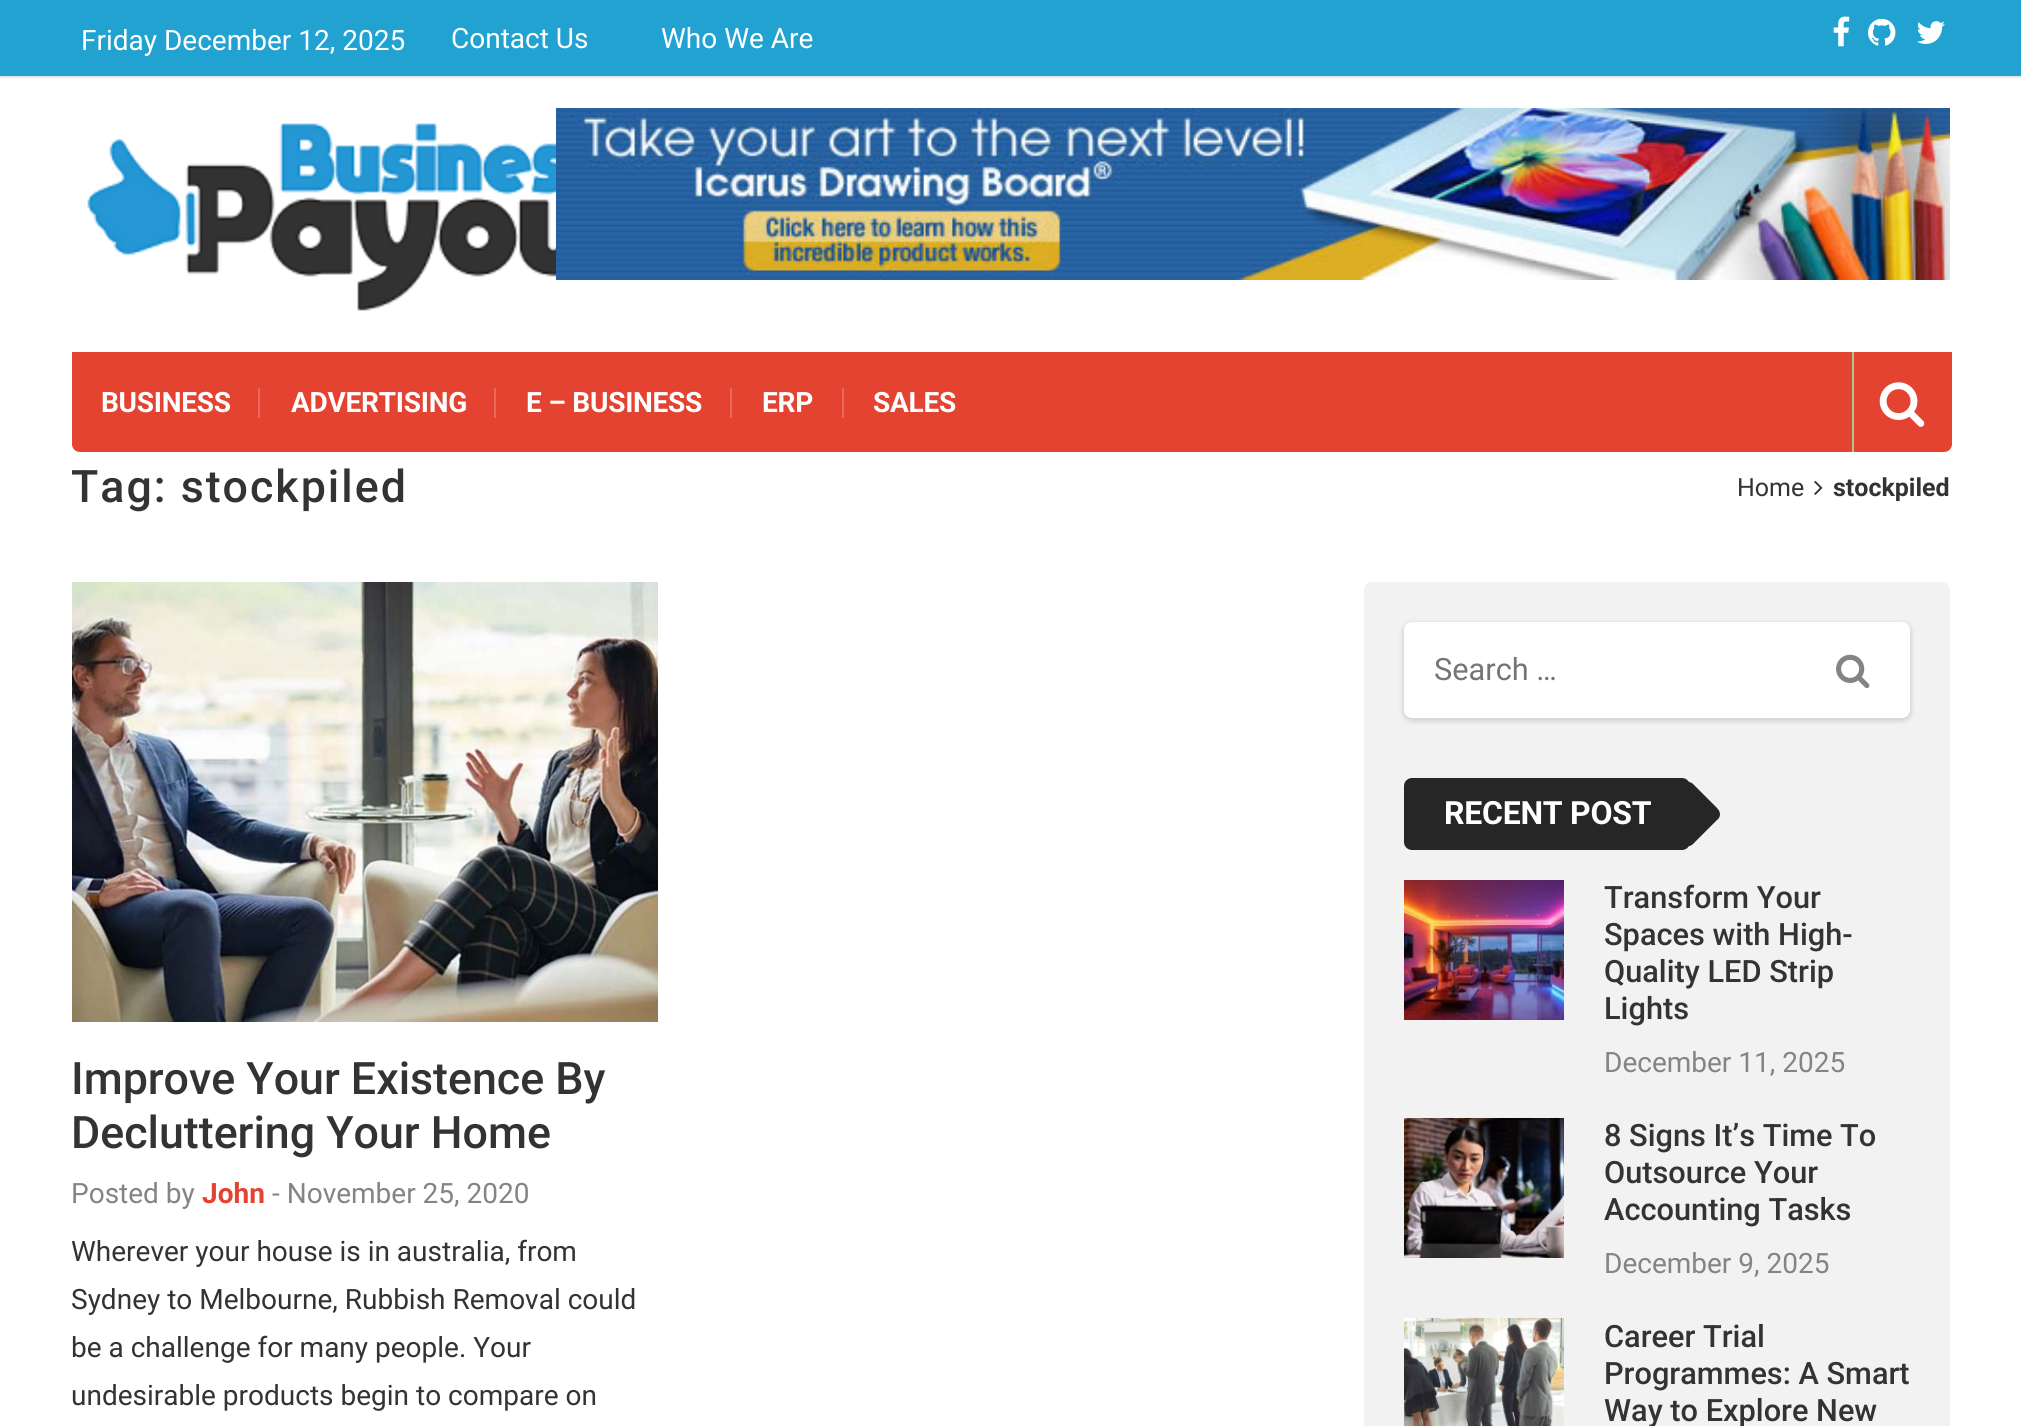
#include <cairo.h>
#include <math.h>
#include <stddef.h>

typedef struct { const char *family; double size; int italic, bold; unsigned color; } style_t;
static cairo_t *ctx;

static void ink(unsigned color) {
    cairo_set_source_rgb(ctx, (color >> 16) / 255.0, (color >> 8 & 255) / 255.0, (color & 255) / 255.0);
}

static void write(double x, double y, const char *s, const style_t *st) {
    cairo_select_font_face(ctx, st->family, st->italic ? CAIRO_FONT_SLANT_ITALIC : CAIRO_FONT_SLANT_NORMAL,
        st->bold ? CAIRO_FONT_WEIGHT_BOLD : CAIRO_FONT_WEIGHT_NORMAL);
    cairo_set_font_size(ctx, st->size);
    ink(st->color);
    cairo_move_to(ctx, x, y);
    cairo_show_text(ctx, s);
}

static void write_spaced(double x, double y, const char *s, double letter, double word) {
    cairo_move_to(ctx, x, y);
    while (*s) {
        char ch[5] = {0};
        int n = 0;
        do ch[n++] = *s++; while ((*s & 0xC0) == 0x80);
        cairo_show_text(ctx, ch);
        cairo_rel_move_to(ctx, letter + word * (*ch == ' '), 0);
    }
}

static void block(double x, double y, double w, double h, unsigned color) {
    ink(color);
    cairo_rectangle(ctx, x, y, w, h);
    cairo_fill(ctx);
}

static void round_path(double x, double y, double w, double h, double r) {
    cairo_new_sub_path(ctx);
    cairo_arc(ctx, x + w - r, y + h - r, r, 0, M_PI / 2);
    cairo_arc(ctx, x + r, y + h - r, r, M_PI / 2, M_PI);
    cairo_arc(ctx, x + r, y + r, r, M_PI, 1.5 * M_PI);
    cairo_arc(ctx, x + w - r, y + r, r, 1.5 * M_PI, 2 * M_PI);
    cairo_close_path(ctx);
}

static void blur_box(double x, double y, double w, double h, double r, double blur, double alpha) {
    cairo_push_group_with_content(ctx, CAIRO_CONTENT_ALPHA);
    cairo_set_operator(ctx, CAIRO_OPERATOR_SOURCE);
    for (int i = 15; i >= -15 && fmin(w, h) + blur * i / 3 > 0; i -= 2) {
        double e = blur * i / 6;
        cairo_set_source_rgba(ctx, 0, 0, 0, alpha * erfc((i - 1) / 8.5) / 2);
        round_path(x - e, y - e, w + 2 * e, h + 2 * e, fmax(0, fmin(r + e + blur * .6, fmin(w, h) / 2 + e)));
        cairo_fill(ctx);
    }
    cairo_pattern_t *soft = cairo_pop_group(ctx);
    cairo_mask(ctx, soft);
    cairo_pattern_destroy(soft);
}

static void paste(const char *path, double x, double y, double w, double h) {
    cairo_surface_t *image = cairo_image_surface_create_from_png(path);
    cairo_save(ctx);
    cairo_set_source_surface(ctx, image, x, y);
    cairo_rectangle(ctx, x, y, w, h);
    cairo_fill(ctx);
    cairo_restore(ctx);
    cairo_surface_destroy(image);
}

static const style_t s1 = {"Roboto", 28, 0, 0, 0xffffff};
static const style_t s2 = {"Roboto", 25, 0, 0, 0x333333};
static const style_t s3 = {"Roboto", 25, 0, 1, 0x333333};
static const style_t s4 = {"Roboto Medium", 44.75, 0, 0, 0x333333};
static const style_t s5 = {"Roboto", 28, 0, 0, 0x858484};
static const style_t s6 = {"Roboto", 28, 0, 1, 0xe44332};
static const style_t s7 = {"Roboto", 28, 0, 0, 0x333333};
static const style_t s8 = {"Roboto", 30.75, 0, 0, 0x757575};
static const style_t s9 = {"Roboto Medium", 30.75, 0, 0, 0x333333};

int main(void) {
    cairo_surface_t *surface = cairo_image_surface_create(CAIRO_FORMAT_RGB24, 2021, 1426);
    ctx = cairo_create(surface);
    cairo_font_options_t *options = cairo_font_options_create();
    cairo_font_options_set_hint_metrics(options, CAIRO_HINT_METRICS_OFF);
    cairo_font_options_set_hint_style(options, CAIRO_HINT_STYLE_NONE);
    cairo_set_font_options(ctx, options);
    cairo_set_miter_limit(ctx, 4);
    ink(0xffffff);
    cairo_paint(ctx);
    block(0, 0, 2021, 76, 0x21a2d1);
    block(0, 76, 2021, 2, 0xe6e6e6);
    write(81, 50, "Friday December 12, 2025", &s1);
    write(451, 48, "Contact Us", &s1);
    write(661, 48, "Who We Are", &s1);
    paste("pic1.png", 1833, 16, 17, 31);
    paste("pic2.png", 1868, 18, 28, 28);
    paste("pic3.png", 1917, 21, 28, 23);
    paste("pic4.png", 87, 123, 569, 188);
    paste("pic5.png", 556, 108, 1394, 172);
    ink(0xe44332);
    cairo_new_path(ctx);
    cairo_move_to(ctx, 72, 352);
    cairo_line_to(ctx, 1952, 352);
    cairo_line_to(ctx, 1952, 444);
    cairo_curve_to(ctx, 1952, 448.5, 1948.5, 452, 1944, 452);
    cairo_line_to(ctx, 80, 452);
    cairo_curve_to(ctx, 75.5, 452, 72, 448.5, 72, 444);
    cairo_close_path(ctx);
    cairo_fill(ctx);
    cairo_select_font_face(ctx, "Roboto", CAIRO_FONT_SLANT_NORMAL, CAIRO_FONT_WEIGHT_BOLD);
    ink(0xffffff);
    write_spaced(101, 412, "BUSINESS", -0.25, 0);
    block(258, 388, 2, 30, 0xe9695b);
    ink(0xffffff);
    write_spaced(291, 412, "ADVERTISING", -0.25, 0);
    block(494, 388, 2, 30, 0xe9695b);
    ink(0xffffff);
    write_spaced(526, 412, "E – BUSINESS", -0.25, 0);
    block(730, 388, 2, 30, 0xe9695b);
    ink(0xffffff);
    write_spaced(762, 412, "ERP", -0.25, 0);
    block(842, 388, 2, 30, 0xe9695b);
    ink(0xffffff);
    write_spaced(873, 412, "SALES", -0.25, 0);
    block(1852, 352, 2, 100, 0xaac988);
    paste("pic6.png", 1879, 382, 46, 45);
    cairo_select_font_face(ctx, "Roboto Medium", CAIRO_FONT_SLANT_NORMAL, CAIRO_FONT_WEIGHT_NORMAL);
    cairo_set_font_size(ctx, 44.75);
    ink(0x333333);
    write_spaced(71, 502, "Tag: stockpiled", 2, 0);
    write(1737, 496, "Home", &s2);
    paste("pic7.png", 1814, 480, 9, 15);
    write(1833, 496, "stockpiled", &s3);
    paste("pic8.png", 72, 582, 586, 440);
    write(71, 1094, "Improve Your Existence By", &s4);
    write(71, 1148, "Decluttering Your Home", &s4);
    write(71, 1203, "Posted by", &s5);
    write(202, 1203, "John", &s6);
    write(272, 1203, "- November 25, 2020", &s5);
    write(71, 1261, "Wherever your house is in australia, from", &s7);
    write(71, 1309, "Sydney to Melbourne, Rubbish Removal could", &s7);
    write(71, 1357, "be a challenge for many people. Your", &s7);
    write(71, 1405, "undesirable products begin to compare on", &s7);
    ink(0xf2f2f2);
    round_path(1364, 582, 586, 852, 8);
    cairo_fill(ctx);
    ink(0x6c6c6c);
    blur_box(1402, 622, 510, 100, 10, 2, 0.2);
    ink(0xffffff);
    round_path(1404, 622, 506, 96, 8);
    cairo_fill(ctx);
    write(1434, 680, "Search …", &s8);
    paste("pic9.png", 1836, 654, 34, 35);
    ink(0x262626);
    round_path(1404, 778, 286, 72, 8);
    cairo_fill(ctx);
    cairo_select_font_face(ctx, "Roboto", CAIRO_FONT_SLANT_NORMAL, CAIRO_FONT_WEIGHT_BOLD);
    cairo_set_font_size(ctx, 32);
    ink(0xffffff);
    write_spaced(1444, 824, "RECENT POST", -0.25, 0);
    ink(0x262626);
    cairo_new_path(ctx);
    cairo_move_to(ctx, 1658, 808);
    cairo_line_to(ctx, 1682, 784);
    cairo_curve_to(ctx, 1685, 781, 1690, 781, 1693, 784);
    cairo_line_to(ctx, 1717, 808);
    cairo_curve_to(ctx, 1721, 812, 1721, 817, 1717, 820);
    cairo_line_to(ctx, 1693, 844);
    cairo_curve_to(ctx, 1690, 847, 1685, 847, 1682, 844);
    cairo_line_to(ctx, 1658, 820);
    cairo_curve_to(ctx, 1655, 817, 1655, 812, 1658, 808);
    cairo_close_path(ctx);
    cairo_fill(ctx);
    paste("pic10.png", 1404, 880, 160, 140);
    write(1604, 908, "Transform Your", &s9);
    write(1604, 945, "Spaces with High-", &s9);
    write(1604, 982, "Quality LED Strip", &s9);
    write(1604, 1019, "Lights", &s9);
    write(1604, 1072, "December 11, 2025", &s5);
    paste("pic11.png", 1404, 1118, 160, 140);
    write(1604, 1146, "8 Signs It’s Time To", &s9);
    write(1604, 1183, "Outsource Your", &s9);
    write(1604, 1220, "Accounting Tasks", &s9);
    write(1604, 1273, "December 9, 2025", &s5);
    paste("pic12.png", 1404, 1318, 160, 108);
    write(1604, 1347, "Career Trial", &s9);
    write(1604, 1384, "Programmes: A Smart", &s9);
    write(1604, 1421, "Way to Explore New", &s9);
    cairo_surface_write_to_png(surface, "screenshot.png");
    cairo_font_options_destroy(options);
    cairo_destroy(ctx);
    cairo_surface_destroy(surface);
    return 0;
}
